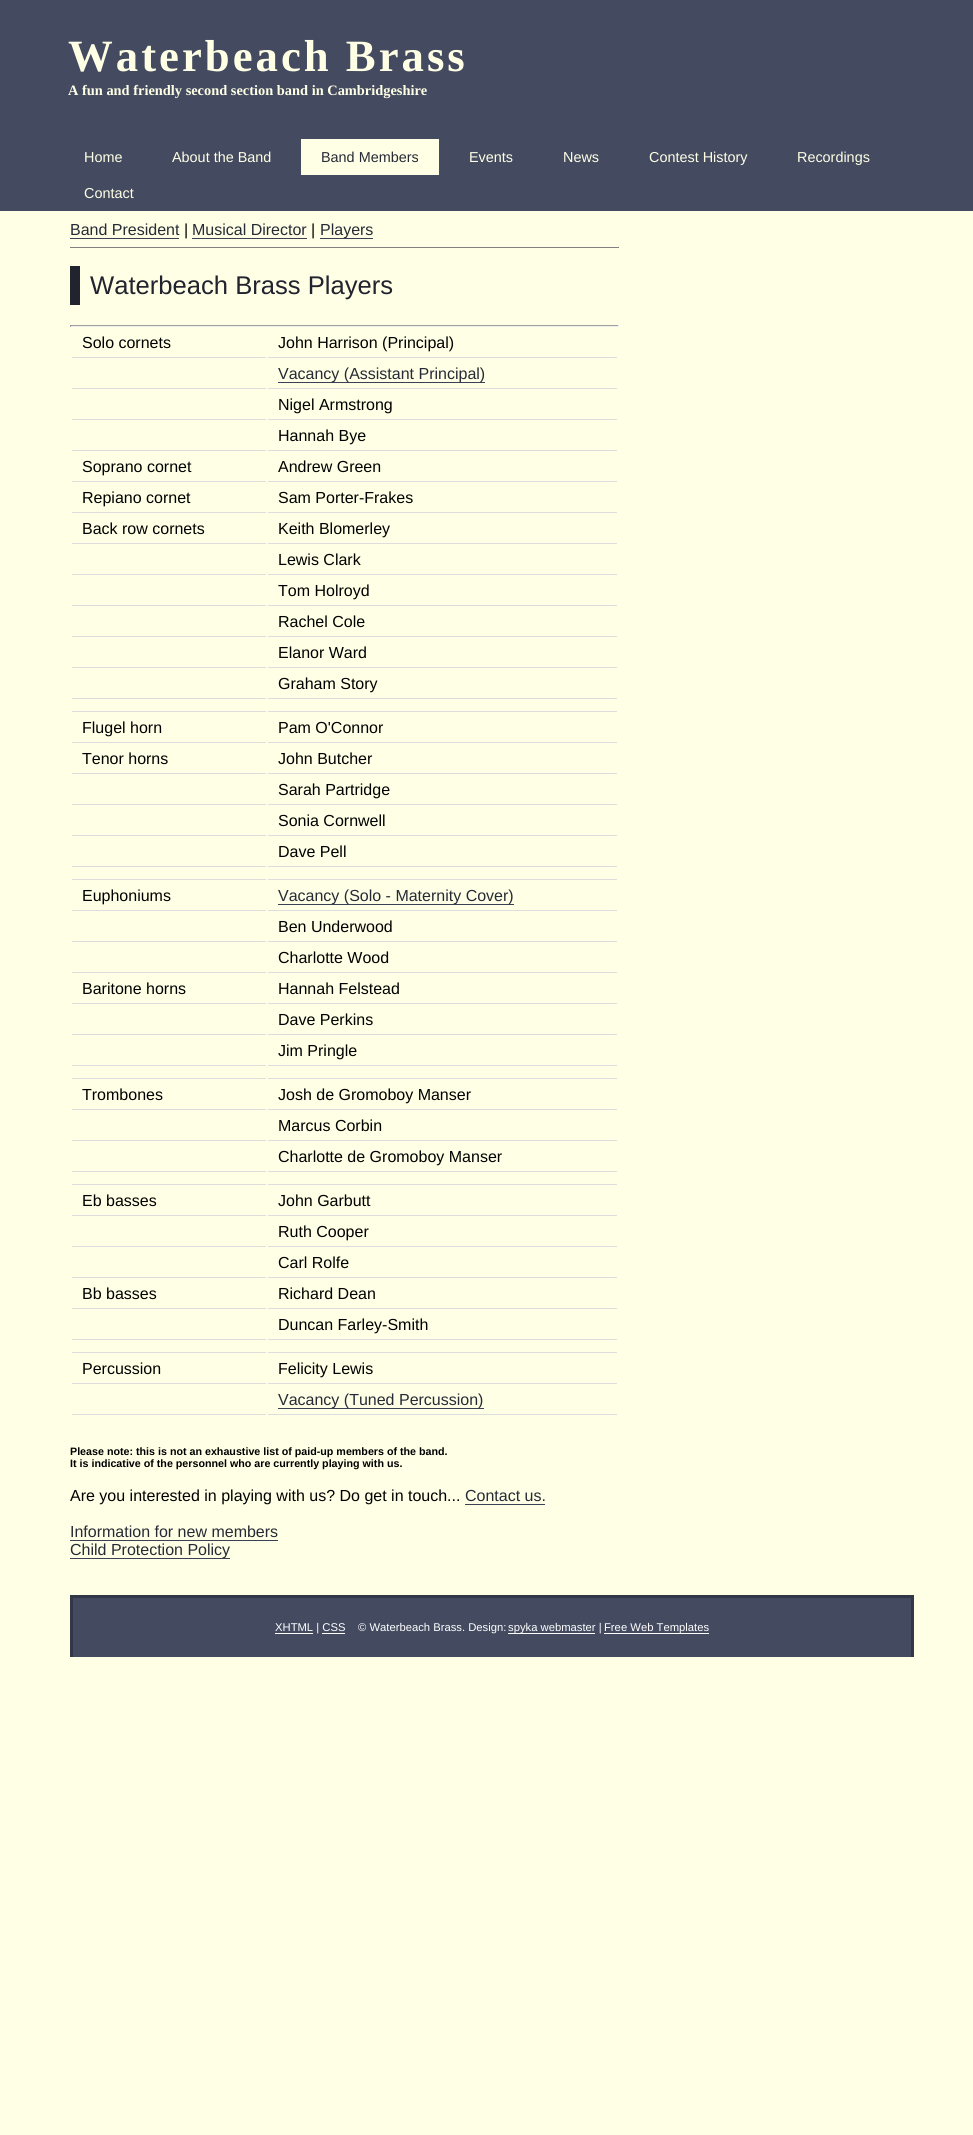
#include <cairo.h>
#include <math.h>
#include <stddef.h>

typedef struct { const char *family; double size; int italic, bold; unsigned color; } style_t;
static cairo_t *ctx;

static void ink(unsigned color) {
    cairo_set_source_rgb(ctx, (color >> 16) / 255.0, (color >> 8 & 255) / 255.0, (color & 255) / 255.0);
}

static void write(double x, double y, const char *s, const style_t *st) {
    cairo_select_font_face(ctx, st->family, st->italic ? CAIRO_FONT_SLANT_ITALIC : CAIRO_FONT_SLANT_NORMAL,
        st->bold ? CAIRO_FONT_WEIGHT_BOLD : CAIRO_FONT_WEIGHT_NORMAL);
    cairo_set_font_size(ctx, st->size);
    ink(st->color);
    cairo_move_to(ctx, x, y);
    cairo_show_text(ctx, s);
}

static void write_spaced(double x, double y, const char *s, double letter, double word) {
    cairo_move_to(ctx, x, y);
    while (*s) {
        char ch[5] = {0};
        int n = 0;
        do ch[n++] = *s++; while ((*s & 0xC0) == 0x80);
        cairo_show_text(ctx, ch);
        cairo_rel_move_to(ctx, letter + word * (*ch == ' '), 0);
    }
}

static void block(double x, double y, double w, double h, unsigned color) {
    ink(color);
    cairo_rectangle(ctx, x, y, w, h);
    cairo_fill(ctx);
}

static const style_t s1 = {"Liberation Serif", 14.4, 0, 1, 0xffffe5};
static const style_t s2 = {"Liberation Sans", 14.4, 0, 0, 0xffffe5};
static const style_t s3 = {"Liberation Sans", 14.4, 0, 0, 0x262a36};
static const style_t s4 = {"Liberation Sans", 16, 0, 0, 0x262a36};
static const style_t s5 = {"Liberation Sans", 16, 0, 0, 0x000000};
static const style_t s6 = {"Liberation Sans", 25.6, 0, 0, 0x21232f};
static const style_t s7 = {"Liberation Sans", 10.7, 0, 1, 0x000000};
static const style_t s8 = {"Liberation Sans", 11.25, 0, 0, 0xffffff};

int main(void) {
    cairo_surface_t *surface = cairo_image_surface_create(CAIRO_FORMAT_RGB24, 973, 2135);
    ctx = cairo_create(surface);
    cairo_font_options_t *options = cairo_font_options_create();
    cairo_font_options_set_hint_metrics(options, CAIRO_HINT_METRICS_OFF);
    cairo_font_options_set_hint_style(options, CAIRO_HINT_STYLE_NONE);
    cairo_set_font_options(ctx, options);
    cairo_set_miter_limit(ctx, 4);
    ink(0xffffe5);
    cairo_paint(ctx);
    block(0, 0, 973, 211, 0x444b60);
    cairo_select_font_face(ctx, "Liberation Serif", CAIRO_FONT_SLANT_NORMAL, CAIRO_FONT_WEIGHT_BOLD);
    cairo_set_font_size(ctx, 44.75);
    ink(0xffffe5);
    write_spaced(68, 71, "Waterbeach Brass", 3, 0);
    write(68, 95, "A fun and friendly second section band in Cambridgeshire", &s1);
    write(84, 162, "Home", &s2);
    write(172, 162, "About the Band", &s2);
    block(301, 139, 138, 36, 0xffffe5);
    write(321, 162, "Band Members", &s3);
    write(469, 162, "Events", &s2);
    write(563, 162, "News", &s2);
    write(649, 162, "Contest History", &s2);
    write(797, 162, "Recordings", &s2);
    write(84, 198, "Contact", &s2);
    block(70, 247, 549, 1, 0x808080);
    write(70, 235, "Band President", &s4);
    block(70, 238, 109, 1, 0x3b4154);
    write(184, 235, "|", &s5);
    write(192, 235, "Musical Director", &s4);
    block(192, 238, 115, 1, 0x3b4154);
    write(311, 235, "|", &s5);
    block(320, 238, 53, 1, 0x3b4154);
    write(320, 235, "Players", &s4);
    block(70, 266, 10, 39, 0x21232f);
    write(90, 294, "Waterbeach Brass Players", &s6);
    block(70, 325, 549, 1, 0x9f9f9f);
    block(618, 325, 1, 2, 0xeeeeee);
    block(70, 326, 549, 1, 0xeeeeee);
    block(70, 325, 1, 2, 0x9f9f9f);
    block(72, 357, 194, 1, 0xdddddd);
    write(82, 348, "Solo cornets", &s5);
    block(268, 357, 349, 1, 0xdddddd);
    write(278, 348, "John Harrison (Principal)", &s5);
    block(268, 388, 349, 1, 0xdddddd);
    block(278, 382, 207, 1, 0x3b4154);
    write(278, 379, "Vacancy (Assistant Principal)", &s4);
    block(72, 388, 194, 1, 0xdddddd);
    block(268, 419, 349, 1, 0xdddddd);
    write(278, 410, "Nigel Armstrong", &s5);
    block(72, 419, 194, 1, 0xdddddd);
    block(268, 450, 349, 1, 0xdddddd);
    write(278, 441, "Hannah Bye", &s5);
    block(72, 450, 194, 1, 0xdddddd);
    block(72, 481, 194, 1, 0xdddddd);
    write(82, 472, "Soprano cornet", &s5);
    block(268, 481, 349, 1, 0xdddddd);
    write(278, 472, "Andrew Green", &s5);
    block(72, 512, 194, 1, 0xdddddd);
    write(82, 503, "Repiano cornet", &s5);
    block(268, 512, 349, 1, 0xdddddd);
    write(278, 503, "Sam Porter-Frakes", &s5);
    block(72, 543, 194, 1, 0xdddddd);
    write(82, 534, "Back row cornets", &s5);
    block(268, 543, 349, 1, 0xdddddd);
    write(278, 534, "Keith Blomerley", &s5);
    block(268, 574, 349, 1, 0xdddddd);
    write(278, 565, "Lewis Clark", &s5);
    block(72, 574, 194, 1, 0xdddddd);
    block(268, 605, 349, 1, 0xdddddd);
    write(278, 596, "Tom Holroyd", &s5);
    block(72, 605, 194, 1, 0xdddddd);
    block(268, 636, 349, 1, 0xdddddd);
    write(278, 627, "Rachel Cole", &s5);
    block(72, 636, 194, 1, 0xdddddd);
    block(268, 667, 349, 1, 0xdddddd);
    write(278, 658, "Elanor Ward", &s5);
    block(72, 667, 194, 1, 0xdddddd);
    block(268, 698, 349, 1, 0xdddddd);
    write(278, 689, "Graham Story", &s5);
    block(72, 698, 194, 1, 0xdddddd);
    block(72, 711, 194, 1, 0xdddddd);
    block(268, 711, 349, 1, 0xdddddd);
    block(72, 742, 194, 1, 0xdddddd);
    write(82, 733, "Flugel horn", &s5);
    block(268, 742, 349, 1, 0xdddddd);
    write(278, 733, "Pam O'Connor", &s5);
    block(72, 773, 194, 1, 0xdddddd);
    write(82, 764, "Tenor horns", &s5);
    block(268, 773, 349, 1, 0xdddddd);
    write(278, 764, "John Butcher", &s5);
    block(268, 804, 349, 1, 0xdddddd);
    write(278, 795, "Sarah Partridge", &s5);
    block(72, 804, 194, 1, 0xdddddd);
    block(268, 835, 349, 1, 0xdddddd);
    write(278, 826, "Sonia Cornwell", &s5);
    block(72, 835, 194, 1, 0xdddddd);
    block(268, 866, 349, 1, 0xdddddd);
    write(278, 857, "Dave Pell", &s5);
    block(72, 866, 194, 1, 0xdddddd);
    block(72, 879, 194, 1, 0xdddddd);
    block(268, 879, 349, 1, 0xdddddd);
    block(72, 910, 194, 1, 0xdddddd);
    write(82, 901, "Euphoniums", &s5);
    block(268, 910, 349, 1, 0xdddddd);
    block(278, 904, 236, 1, 0x3b4154);
    write(278, 901, "Vacancy (Solo - Maternity Cover)", &s4);
    block(268, 941, 349, 1, 0xdddddd);
    write(278, 932, "Ben Underwood", &s5);
    block(72, 941, 194, 1, 0xdddddd);
    block(268, 972, 349, 1, 0xdddddd);
    write(278, 963, "Charlotte Wood", &s5);
    block(72, 972, 194, 1, 0xdddddd);
    block(72, 1003, 194, 1, 0xdddddd);
    write(82, 994, "Baritone horns", &s5);
    block(268, 1003, 349, 1, 0xdddddd);
    write(278, 994, "Hannah Felstead", &s5);
    block(268, 1034, 349, 1, 0xdddddd);
    write(278, 1025, "Dave Perkins", &s5);
    block(72, 1034, 194, 1, 0xdddddd);
    block(268, 1065, 349, 1, 0xdddddd);
    write(278, 1056, "Jim Pringle", &s5);
    block(72, 1065, 194, 1, 0xdddddd);
    block(72, 1078, 194, 1, 0xdddddd);
    block(268, 1078, 349, 1, 0xdddddd);
    block(72, 1109, 194, 1, 0xdddddd);
    write(82, 1100, "Trombones", &s5);
    block(268, 1109, 349, 1, 0xdddddd);
    write(278, 1100, "Josh de Gromoboy Manser", &s5);
    block(268, 1140, 349, 1, 0xdddddd);
    write(278, 1131, "Marcus Corbin", &s5);
    block(72, 1140, 194, 1, 0xdddddd);
    block(268, 1171, 349, 1, 0xdddddd);
    write(278, 1162, "Charlotte de Gromoboy Manser", &s5);
    block(72, 1171, 194, 1, 0xdddddd);
    block(72, 1184, 194, 1, 0xdddddd);
    block(268, 1184, 349, 1, 0xdddddd);
    block(72, 1215, 194, 1, 0xdddddd);
    write(82, 1206, "Eb basses", &s5);
    block(268, 1215, 349, 1, 0xdddddd);
    write(278, 1206, "John Garbutt", &s5);
    block(268, 1246, 349, 1, 0xdddddd);
    write(278, 1237, "Ruth Cooper", &s5);
    block(72, 1246, 194, 1, 0xdddddd);
    block(268, 1277, 349, 1, 0xdddddd);
    write(278, 1268, "Carl Rolfe", &s5);
    block(72, 1277, 194, 1, 0xdddddd);
    block(72, 1308, 194, 1, 0xdddddd);
    write(82, 1299, "Bb basses", &s5);
    block(268, 1308, 349, 1, 0xdddddd);
    write(278, 1299, "Richard Dean", &s5);
    block(268, 1339, 349, 1, 0xdddddd);
    write(278, 1330, "Duncan Farley-Smith", &s5);
    block(72, 1339, 194, 1, 0xdddddd);
    block(72, 1352, 194, 1, 0xdddddd);
    block(268, 1352, 349, 1, 0xdddddd);
    block(72, 1383, 194, 1, 0xdddddd);
    write(82, 1374, "Percussion", &s5);
    block(268, 1383, 349, 1, 0xdddddd);
    write(278, 1374, "Felicity Lewis", &s5);
    block(268, 1414, 349, 1, 0xdddddd);
    block(278, 1408, 206, 1, 0x3b4154);
    write(278, 1405, "Vacancy (Tuned Percussion)", &s4);
    block(72, 1414, 194, 1, 0xdddddd);
    write(70, 1455, "Please note: this is not an exhaustive list of paid-up members of the band.", &s7);
    write(70, 1467, "It is indicative of the personnel who are currently playing with us.", &s7);
    write(70, 1501, "Are you interested in playing with us? Do get in touch...", &s5);
    write(465, 1501, "Contact us.", &s4);
    block(465, 1504, 80, 1, 0x3b4154);
    write(70, 1537, "Information for new members", &s4);
    block(70, 1540, 208, 1, 0x3b4154);
    block(70, 1558, 160, 1, 0x3b4154);
    write(70, 1555, "Child Protection Policy", &s4);
    block(73, 1598, 838, 59, 0x444b60);
    block(70, 1595, 844, 3, 0x313747);
    block(911, 1595, 3, 62, 0x313747);
    block(70, 1595, 3, 62, 0x313747);
    block(275, 1633, 38, 1, 0xffffff);
    write(275, 1631, "XHTML | CSS", &s8);
    write(358, 1631, "© Waterbeach Brass. Design:", &s8);
    block(508, 1633, 87, 1, 0xffffff);
    write(508, 1631, "spyka webmaster |", &s8);
    block(604, 1633, 105, 1, 0xffffff);
    write(604, 1631, "Free Web Templates", &s8);
    block(322, 1633, 23, 1, 0xffffff);
    cairo_surface_write_to_png(surface, "screenshot.png");
    cairo_font_options_destroy(options);
    cairo_destroy(ctx);
    cairo_surface_destroy(surface);
    return 0;
}
